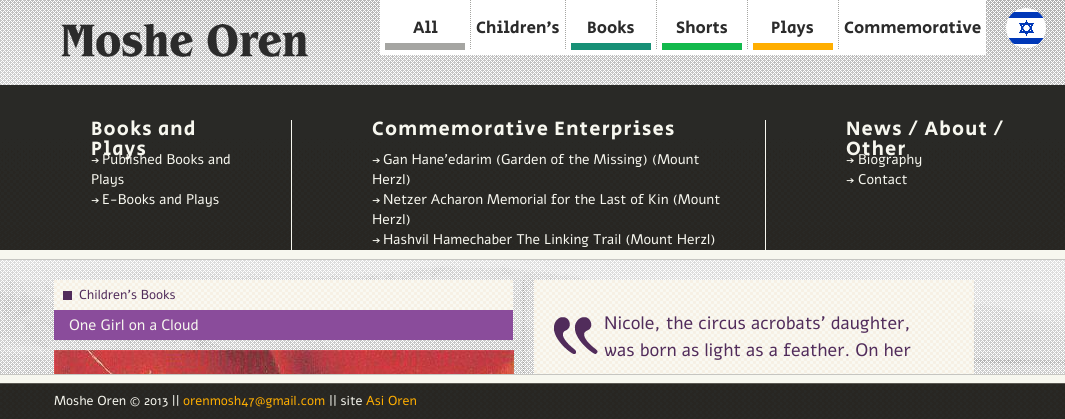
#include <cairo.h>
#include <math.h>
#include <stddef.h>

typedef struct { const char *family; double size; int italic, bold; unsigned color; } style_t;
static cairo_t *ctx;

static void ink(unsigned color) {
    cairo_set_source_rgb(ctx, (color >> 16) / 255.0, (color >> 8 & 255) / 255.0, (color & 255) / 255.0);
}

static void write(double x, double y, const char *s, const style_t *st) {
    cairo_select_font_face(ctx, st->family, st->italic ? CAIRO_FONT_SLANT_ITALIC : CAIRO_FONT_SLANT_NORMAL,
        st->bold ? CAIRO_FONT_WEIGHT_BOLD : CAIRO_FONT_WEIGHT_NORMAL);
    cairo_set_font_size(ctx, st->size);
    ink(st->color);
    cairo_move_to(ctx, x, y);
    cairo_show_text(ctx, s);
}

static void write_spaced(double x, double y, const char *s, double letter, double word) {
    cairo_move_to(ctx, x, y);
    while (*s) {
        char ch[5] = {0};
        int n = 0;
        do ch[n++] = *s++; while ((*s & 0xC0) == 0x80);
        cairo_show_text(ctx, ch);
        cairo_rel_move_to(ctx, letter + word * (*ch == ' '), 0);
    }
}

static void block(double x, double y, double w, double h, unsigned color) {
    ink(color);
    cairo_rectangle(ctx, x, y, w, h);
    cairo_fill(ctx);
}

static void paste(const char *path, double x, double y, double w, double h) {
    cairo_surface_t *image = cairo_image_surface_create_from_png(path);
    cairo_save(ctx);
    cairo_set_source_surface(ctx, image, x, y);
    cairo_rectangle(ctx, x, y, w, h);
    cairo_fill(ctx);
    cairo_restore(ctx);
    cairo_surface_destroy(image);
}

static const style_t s1 = {"Secular One", 17, 0, 0, 0x2b2b2b};
static const style_t s2 = {"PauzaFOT", 14, 0, 0, 0xf7f7ef};
static const style_t s3 = {"Alef", 14, 0, 0, 0xf7f7ef};
static const style_t s4 = {"Alef", 13, 0, 0, 0x512c5b};
static const style_t s5 = {"Alef", 15, 0, 0, 0xf7f7ef};
static const style_t s6 = {"Alef", 18, 0, 0, 0x512c5b};
static const style_t s7 = {"Alef", 13, 0, 0, 0xf7f7ef};
static const style_t s8 = {"Alef", 13, 0, 0, 0xffae00};

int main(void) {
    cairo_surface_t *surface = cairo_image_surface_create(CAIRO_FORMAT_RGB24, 1065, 419);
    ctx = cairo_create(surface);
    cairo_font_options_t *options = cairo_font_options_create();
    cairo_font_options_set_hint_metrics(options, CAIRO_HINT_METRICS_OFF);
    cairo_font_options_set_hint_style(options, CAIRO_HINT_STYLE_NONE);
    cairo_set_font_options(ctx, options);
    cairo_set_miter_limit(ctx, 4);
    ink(0xffffff);
    cairo_paint(ctx);
    paste("pic1.png", 0, 0, 1065, 374);
    paste("pic2.png", 0, 0, 1065, 85);
    paste("pic3.png", 61, 23, 247, 34);
    block(380, 0, 606, 55, 0xffffff);
    cairo_new_path(ctx);
    cairo_move_to(ctx, 470.5, -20);
    cairo_line_to(ctx, 470.5, 50);
    ink(0xa5a5a2);
    cairo_set_line_width(ctx, 1);
    cairo_set_dash(ctx, (double[]){1, 1}, 2, 0);
    cairo_stroke(ctx);
    block(385, 43, 80, 7, 0xa5a5a2);
    write(413, 33, "All", &s1);
    cairo_new_path(ctx);
    cairo_move_to(ctx, 565.5, -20);
    cairo_line_to(ctx, 565.5, 50);
    ink(0xa5a5a2);
    cairo_stroke(ctx);
    write(476, 33, "Children’s", &s1);
    cairo_new_path(ctx);
    cairo_move_to(ctx, 656.5, -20);
    cairo_line_to(ctx, 656.5, 50);
    ink(0xa5a5a2);
    cairo_stroke(ctx);
    block(571, 43, 80, 7, 0x179076);
    write(587, 33, "Books", &s1);
    cairo_new_path(ctx);
    cairo_move_to(ctx, 747.5, -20);
    cairo_line_to(ctx, 747.5, 50);
    ink(0xa5a5a2);
    cairo_stroke(ctx);
    block(662, 43, 80, 7, 0x12b94c);
    write(676, 33, "Shorts", &s1);
    cairo_new_path(ctx);
    cairo_move_to(ctx, 838.5, -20);
    cairo_line_to(ctx, 838.5, 50);
    ink(0xa5a5a2);
    cairo_stroke(ctx);
    block(753, 43, 80, 7, 0xffae00);
    write(771, 33, "Plays", &s1);
    write(844, 33, "Commemorative", &s1);
    paste("pic4.png", 1006, 8, 40, 40);
    paste("pic5.png", 0, 85, 1065, 175);
    block(291, 120, 1, 130, 0xf7f7ef);
    cairo_set_font_size(ctx, 20);
    write_spaced(91, 135, "Books and", 1.2, 0);
    write_spaced(91, 155, "Plays", 1.2, 0);
    write(91, 164, ">", &s2);
    write(102, 164, "Published Books and", &s3);
    write(91, 184, "Plays", &s3);
    write(91, 204, ">", &s2);
    write(102, 204, "E-Books and Plays", &s3);
    block(765, 120, 1, 130, 0xf7f7ef);
    cairo_select_font_face(ctx, "Secular One", CAIRO_FONT_SLANT_NORMAL, CAIRO_FONT_WEIGHT_NORMAL);
    cairo_set_font_size(ctx, 20);
    write_spaced(372, 135, "Commemorative Enterprises", 1.2, 0);
    write(372, 164, ">", &s2);
    write(383, 164, "Gan Hane’edarim (Garden of the Missing) (Mount", &s3);
    write(372, 184, "Herzl)", &s3);
    write(372, 204, ">", &s2);
    write(383, 204, "Netzer Acharon Memorial for the Last of Kin (Mount", &s3);
    write(372, 224, "Herzl)", &s3);
    write(372, 244, ">", &s2);
    write(383, 244, "Hashvil Hamechaber The Linking Trail (Mount Herzl)", &s3);
    cairo_select_font_face(ctx, "Secular One", CAIRO_FONT_SLANT_NORMAL, CAIRO_FONT_WEIGHT_NORMAL);
    cairo_set_font_size(ctx, 20);
    write_spaced(846, 135, "News / About /", 1.2, 0);
    write_spaced(846, 155, "Other", 1.2, 0);
    write(846, 164, ">", &s2);
    write(858, 164, "Biography", &s3);
    write(846, 184, ">", &s2);
    write(858, 184, "Contact", &s3);
    paste("pic6.png", 0, 260, 1065, 114);
    cairo_new_path(ctx);
    cairo_move_to(ctx, 523.5, 280);
    cairo_line_to(ctx, 523.5, 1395);
    ink(0xa5a5a2);
    cairo_stroke(ctx);
    paste("pic7.png", 54, 280, 459, 30);
    block(63, 291, 9, 9, 0x512c5b);
    write(79, 299, "Children’s Books", &s4);
    block(54, 310, 459, 30, 0x8a4c9b);
    write(69, 330, "One Girl on a Cloud", &s5);
    paste("pic8.png", 54, 350, 460, 24);
    paste("pic9.png", 534, 280, 440, 94);
    paste("pic10.png", 554, 317, 44, 37);
    write(604, 329, "Nicole, the circus acrobats’ daughter,", &s6);
    write(604, 356, "was born as light as a feather. On her", &s6);
    paste("pic11.png", 0, 374, 1065, 45);
    write(54, 405, "Moshe Oren © 2013 ||", &s7);
    write(183, 405, "orenmosh47@gmail.com", &s8);
    write(329, 405, "|| site", &s7);
    write(366, 405, "Asi Oren", &s8);
    cairo_surface_write_to_png(surface, "screenshot.png");
    cairo_font_options_destroy(options);
    cairo_destroy(ctx);
    cairo_surface_destroy(surface);
    return 0;
}
